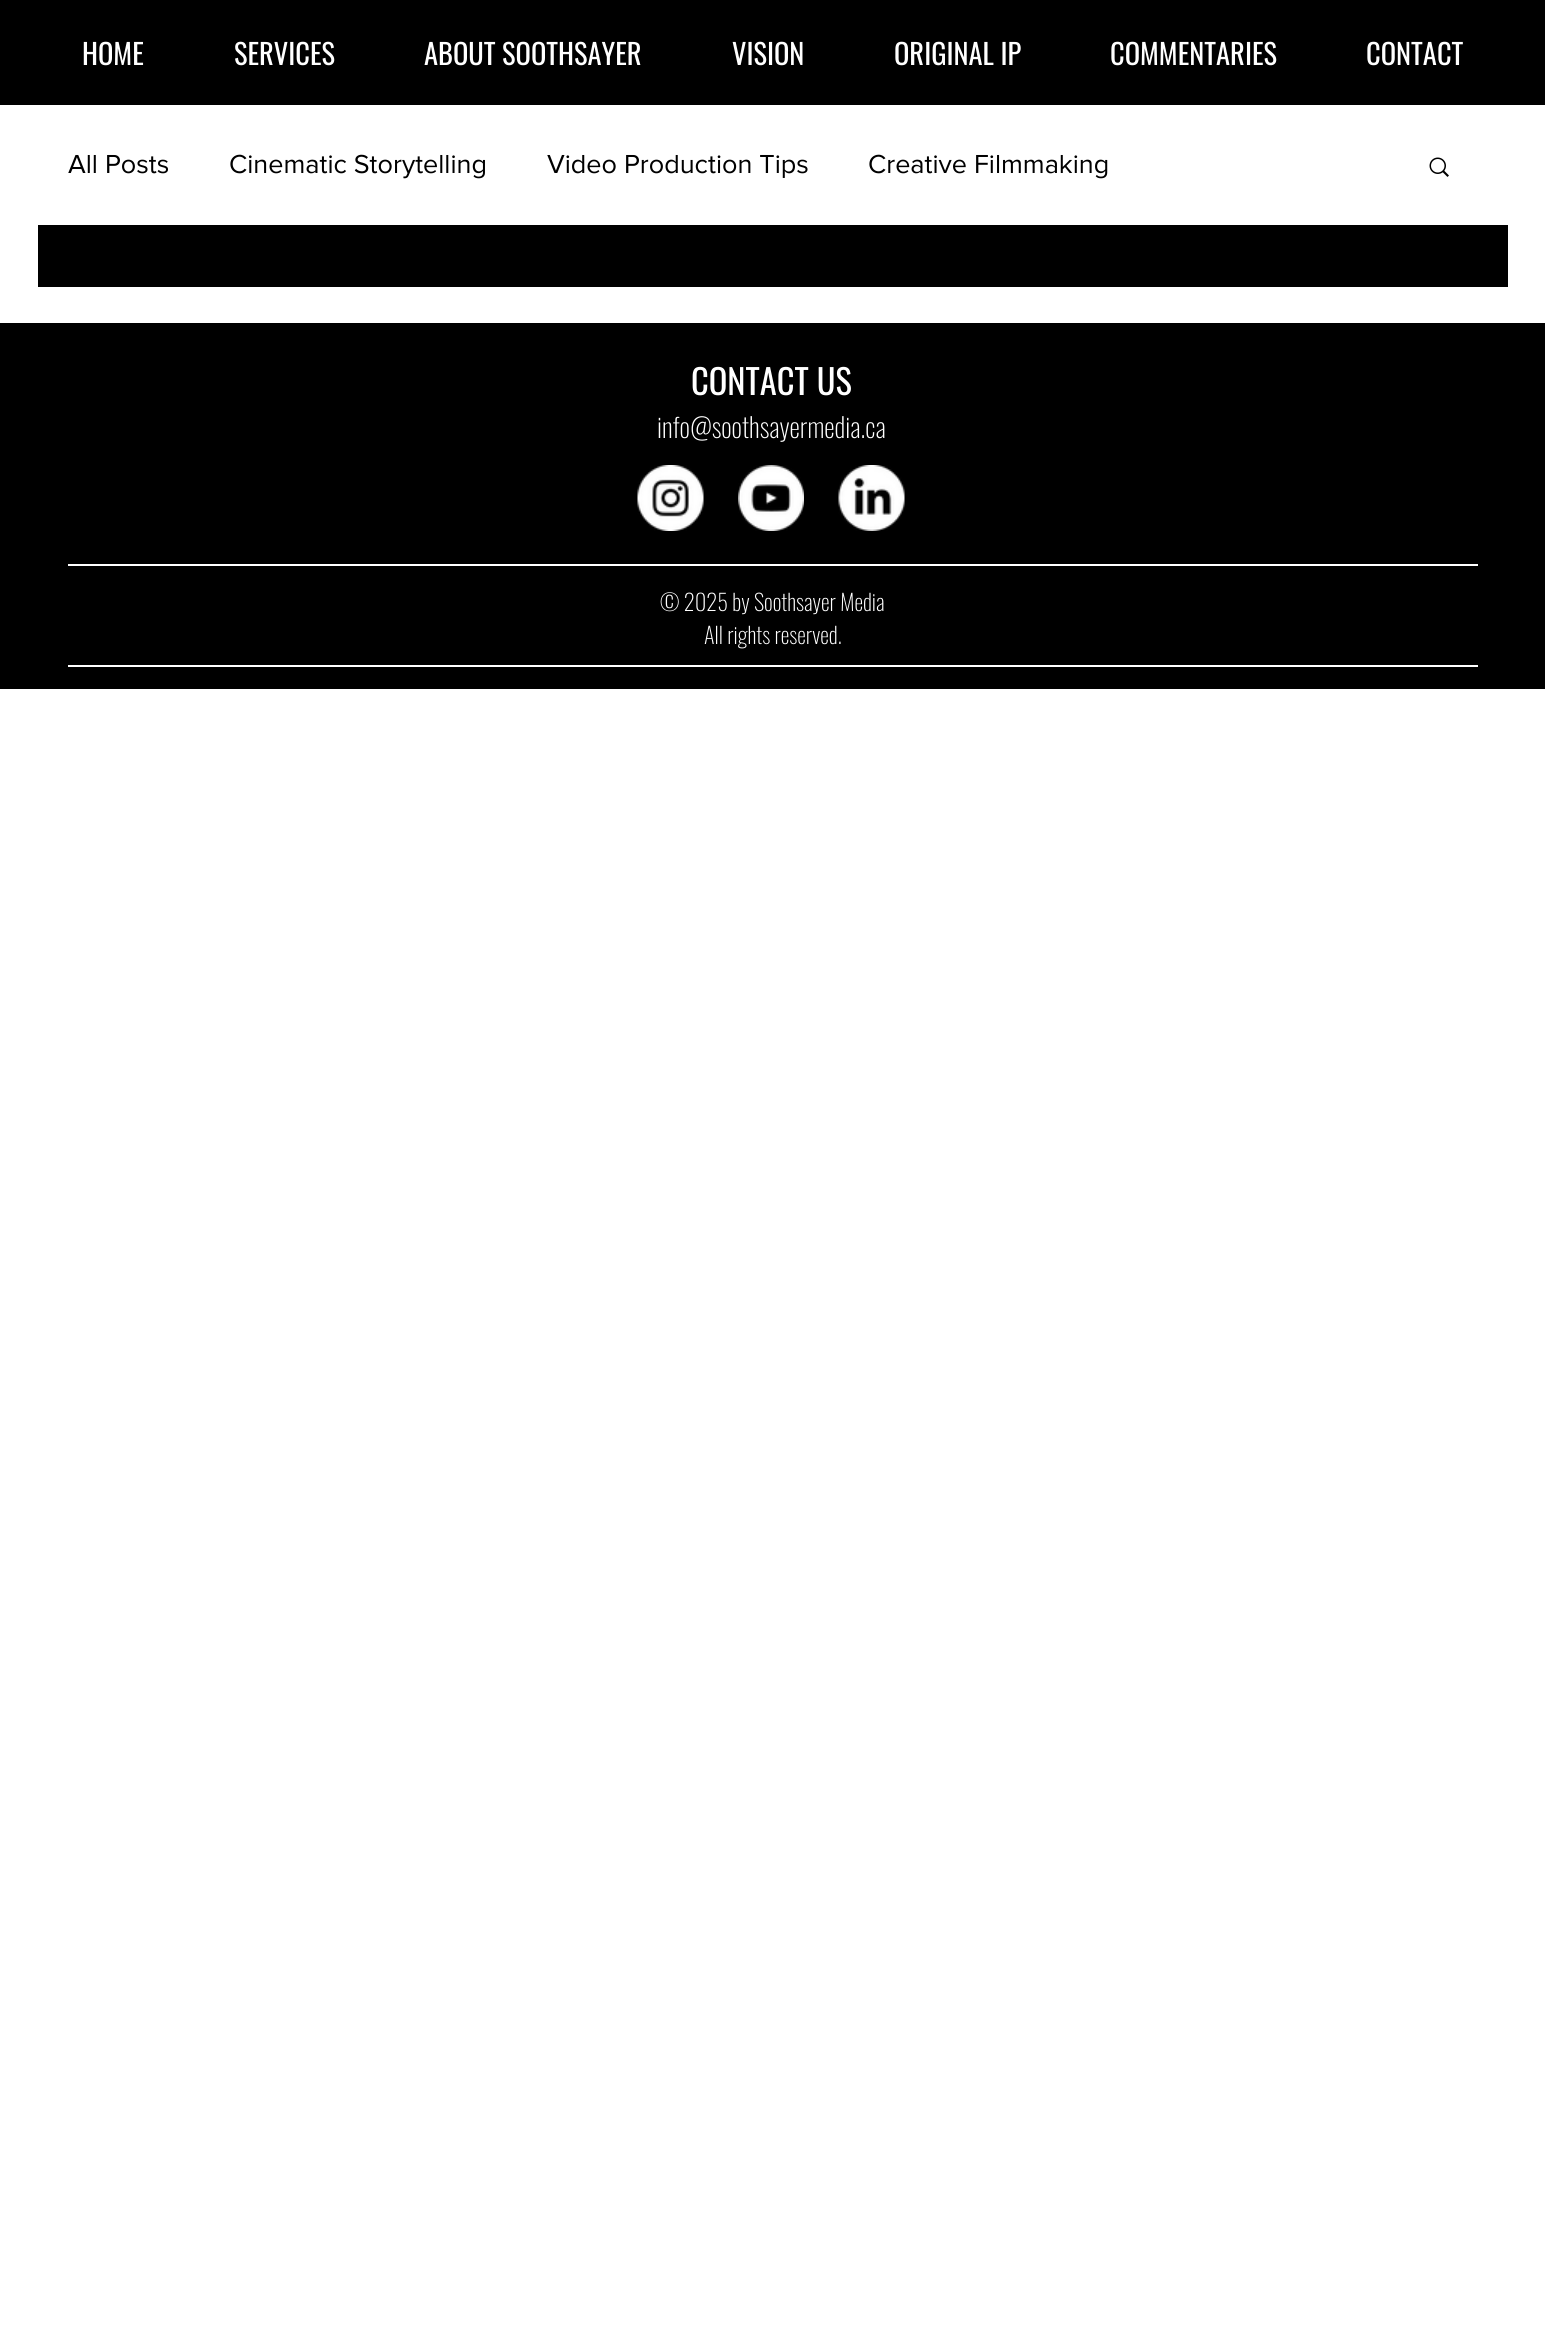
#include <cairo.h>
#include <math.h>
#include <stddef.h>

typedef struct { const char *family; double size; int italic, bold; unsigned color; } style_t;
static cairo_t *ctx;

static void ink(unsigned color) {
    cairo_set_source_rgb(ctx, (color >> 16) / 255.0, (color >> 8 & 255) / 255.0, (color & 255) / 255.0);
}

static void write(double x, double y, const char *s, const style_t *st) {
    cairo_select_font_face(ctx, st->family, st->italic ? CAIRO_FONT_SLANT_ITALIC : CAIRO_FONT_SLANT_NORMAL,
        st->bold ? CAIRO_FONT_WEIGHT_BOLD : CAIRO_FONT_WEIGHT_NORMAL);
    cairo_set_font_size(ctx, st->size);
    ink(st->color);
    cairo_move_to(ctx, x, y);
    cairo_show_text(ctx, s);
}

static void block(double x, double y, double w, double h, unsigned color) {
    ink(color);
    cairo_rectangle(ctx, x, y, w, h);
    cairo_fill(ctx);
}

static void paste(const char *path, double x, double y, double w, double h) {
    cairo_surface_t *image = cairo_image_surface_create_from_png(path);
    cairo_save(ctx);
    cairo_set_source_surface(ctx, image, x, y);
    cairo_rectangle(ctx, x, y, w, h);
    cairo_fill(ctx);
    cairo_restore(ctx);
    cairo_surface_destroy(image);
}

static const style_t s1 = {"Oswald", 28.5, 0, 0, 0xffffff};
static const style_t s2 = {"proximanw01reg", 27, 0, 0, 0x000000};
static const style_t s3 = {"Oswald", 34.5, 0, 0, 0xffffff};
static const style_t s4 = {"Oswald ExtraLight", 27, 0, 0, 0xffffff};
static const style_t s5 = {"Oswald ExtraLight", 22.5, 0, 0, 0xffffff};

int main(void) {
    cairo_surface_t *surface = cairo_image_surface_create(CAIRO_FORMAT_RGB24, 1545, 2328);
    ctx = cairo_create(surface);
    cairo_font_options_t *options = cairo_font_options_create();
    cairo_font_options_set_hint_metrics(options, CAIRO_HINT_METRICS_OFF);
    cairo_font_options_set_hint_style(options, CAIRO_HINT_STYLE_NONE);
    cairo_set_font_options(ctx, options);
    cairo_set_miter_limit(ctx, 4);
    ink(0xffffff);
    cairo_paint(ctx);
    block(0, 0, 1545, 105, 0x000000);
    write(82, 65, "HOME", &s1);
    write(234, 65, "SERVICES", &s1);
    write(424, 65, "ABOUT SOOTHSAYER", &s1);
    write(732, 65, "VISION", &s1);
    write(894, 65, "ORIGINAL IP", &s1);
    write(1110, 65, "COMMENTARIES", &s1);
    write(1366, 65, "CONTACT", &s1);
    block(38, 225, 1470, 62, 0x000000);
    write(68, 173, "All Posts", &s2);
    write(229, 173, "Cinematic Storytelling", &s2);
    write(547, 173, "Video Production Tips", &s2);
    write(868, 173, "Creative Filmmaking", &s2);
    paste("pic1.png", 1429, 157, 20, 20);
    block(0, 323, 1545, 366, 0x000000);
    write(691, 395, "CONTACT US", &s3);
    write(657, 438, "info@soothsayermedia.ca", &s4);
    paste("pic2.png", 637, 465, 67, 66);
    paste("pic3.png", 738, 465, 66, 66);
    paste("pic4.png", 838, 465, 67, 66);
    block(68, 564, 1410, 2, 0xffffff);
    write(660, 611, "© 2025 by Soothsayer Media", &s5);
    write(704, 644, "All rights reserved.", &s5);
    block(68, 665, 1410, 2, 0xffffff);
    cairo_surface_write_to_png(surface, "screenshot.png");
    cairo_font_options_destroy(options);
    cairo_destroy(ctx);
    cairo_surface_destroy(surface);
    return 0;
}
